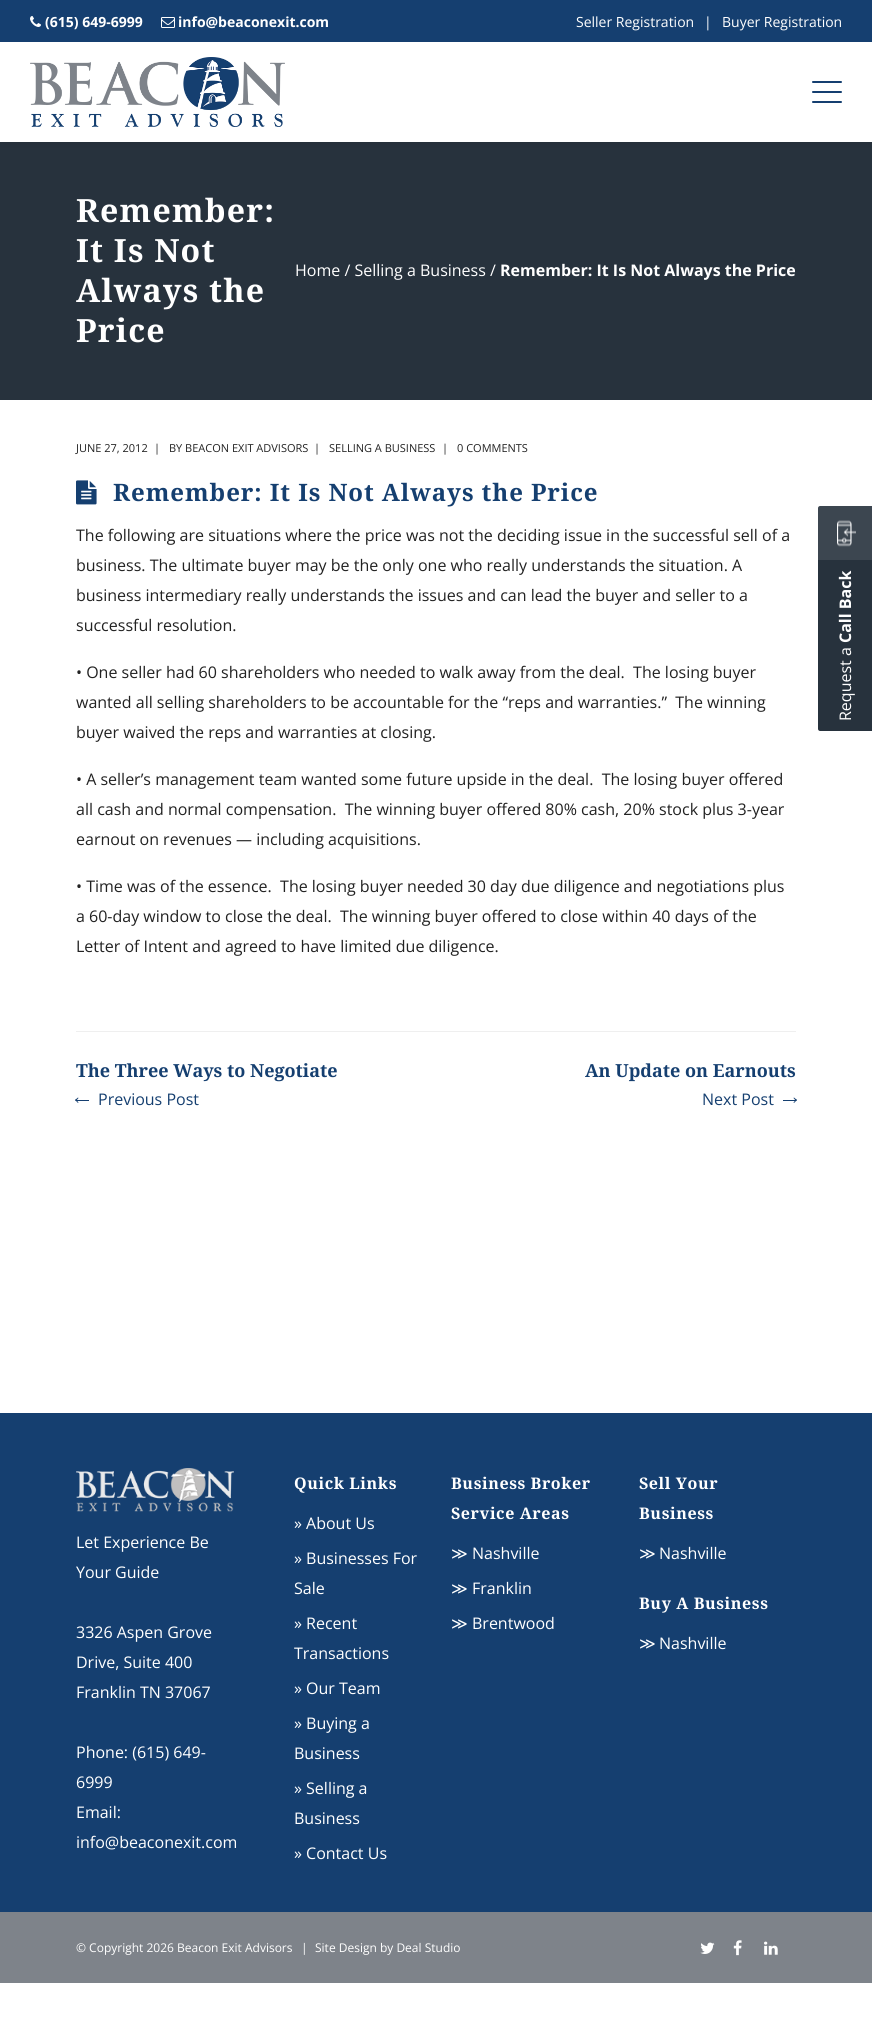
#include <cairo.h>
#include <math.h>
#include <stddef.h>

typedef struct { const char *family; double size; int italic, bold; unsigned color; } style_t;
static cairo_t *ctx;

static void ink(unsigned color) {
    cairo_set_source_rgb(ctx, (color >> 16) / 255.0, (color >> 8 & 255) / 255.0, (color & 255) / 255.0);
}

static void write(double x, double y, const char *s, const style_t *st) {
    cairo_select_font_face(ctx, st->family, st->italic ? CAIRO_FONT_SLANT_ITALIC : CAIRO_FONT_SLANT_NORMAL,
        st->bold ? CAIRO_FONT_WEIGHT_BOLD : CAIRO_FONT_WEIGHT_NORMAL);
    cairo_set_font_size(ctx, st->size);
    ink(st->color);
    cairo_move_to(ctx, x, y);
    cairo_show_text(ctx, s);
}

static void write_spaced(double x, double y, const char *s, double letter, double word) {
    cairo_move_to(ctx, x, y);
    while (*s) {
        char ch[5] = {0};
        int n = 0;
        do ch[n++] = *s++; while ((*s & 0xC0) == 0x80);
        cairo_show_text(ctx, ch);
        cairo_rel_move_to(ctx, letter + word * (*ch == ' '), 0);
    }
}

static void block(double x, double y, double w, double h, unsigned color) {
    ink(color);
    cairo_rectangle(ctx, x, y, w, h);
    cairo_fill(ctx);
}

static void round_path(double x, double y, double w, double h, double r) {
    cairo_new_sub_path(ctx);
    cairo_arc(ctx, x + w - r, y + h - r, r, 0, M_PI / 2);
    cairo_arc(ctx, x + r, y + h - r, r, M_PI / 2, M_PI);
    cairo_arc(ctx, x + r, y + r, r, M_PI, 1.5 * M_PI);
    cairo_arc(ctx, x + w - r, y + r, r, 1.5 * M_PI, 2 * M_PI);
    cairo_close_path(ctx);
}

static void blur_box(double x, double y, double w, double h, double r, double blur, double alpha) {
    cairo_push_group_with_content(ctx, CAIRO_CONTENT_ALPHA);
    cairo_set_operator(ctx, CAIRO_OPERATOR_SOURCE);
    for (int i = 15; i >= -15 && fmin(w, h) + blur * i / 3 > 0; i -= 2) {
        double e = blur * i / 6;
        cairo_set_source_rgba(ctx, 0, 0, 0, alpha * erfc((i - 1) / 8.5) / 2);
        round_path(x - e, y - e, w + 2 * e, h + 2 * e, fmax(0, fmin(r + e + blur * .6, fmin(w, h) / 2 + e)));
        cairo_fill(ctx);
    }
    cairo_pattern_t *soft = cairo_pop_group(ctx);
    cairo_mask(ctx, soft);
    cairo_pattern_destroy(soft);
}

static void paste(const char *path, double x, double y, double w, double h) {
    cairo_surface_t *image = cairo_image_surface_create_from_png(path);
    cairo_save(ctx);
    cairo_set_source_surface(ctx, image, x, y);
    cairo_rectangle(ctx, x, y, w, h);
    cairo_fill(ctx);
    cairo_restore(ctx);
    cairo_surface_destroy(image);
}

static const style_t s1 = {"Open Sans", 14, 0, 1, 0xffffff};
static const style_t s2 = {"Open Sans", 14, 0, 0, 0xffffff};
static const style_t s3 = {"Open Sans", 16, 0, 0, 0xffffff};
static const style_t s4 = {"Open Sans", 16, 0, 1, 0xffffff};
static const style_t s5 = {"Open Sans", 11, 0, 0, 0x222222};
static const style_t s6 = {"Open Sans", 16, 0, 0, 0x222222};
static const style_t s7 = {"Noto Serif", 18, 0, 1, 0x153f70};
static const style_t s8 = {"Open Sans", 16, 0, 0, 0x153f70};
static const style_t s9 = {"DejaVu Sans", 16, 0, 0, 0xffffff};
static const style_t s10 = {"Open Sans", 12, 0, 0, 0xffffff};

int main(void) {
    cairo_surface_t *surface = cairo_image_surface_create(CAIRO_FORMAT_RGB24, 872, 2025);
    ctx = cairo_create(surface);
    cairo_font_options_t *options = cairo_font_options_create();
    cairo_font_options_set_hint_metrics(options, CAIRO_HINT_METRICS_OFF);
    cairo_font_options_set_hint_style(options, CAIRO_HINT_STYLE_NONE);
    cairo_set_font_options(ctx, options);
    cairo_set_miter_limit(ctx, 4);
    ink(0xffffff);
    cairo_paint(ctx);
    block(0, 142, 872, 258, 0x27323d);
    ink(0x000000);
    blur_box(1, 0, 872, 142, 0, 5, 0.1);
    block(0, 42, 872, 100, 0xffffff);
    block(0, 0, 872, 42, 0x153f70);
    paste("pic1.png", 30, 16, 11, 11);
    write(45, 27, "(615) 649-6999", &s1);
    paste("pic2.png", 161, 17, 14, 11);
    write(178, 27, "info@beaconexit.com", &s1);
    write(576, 27, "Seller Registration", &s2);
    write(704, 27, "|", &s2);
    write(722, 27, "Buyer Registration", &s2);
    paste("pic3.png", 30, 57, 255, 70);
    ink(0x153f70);
    round_path(812, 91, 30, 2, 1);
    cairo_fill(ctx);
    round_path(812, 81, 30, 2, 1);
    cairo_fill(ctx);
    round_path(812, 101, 30, 2, 1);
    cairo_fill(ctx);
    cairo_select_font_face(ctx, "Noto Serif", CAIRO_FONT_SLANT_NORMAL, CAIRO_FONT_WEIGHT_BOLD);
    cairo_set_font_size(ctx, 32);
    ink(0xffffff);
    write_spaced(76, 222, "Remember:", 1.25, 0);
    write_spaced(76, 262, "It Is Not", 1.25, 0);
    write_spaced(76, 302, "Always the", 1.25, 0);
    write_spaced(76, 342, "Price", 1.25, 0);
    write(295, 276, "Home / Selling a Business /", &s3);
    write(500, 276, "Remember: It Is Not Always the Price", &s4);
    write(76, 452, "JUNE 27, 2012", &s5);
    write(154, 452, "|", &s5);
    write(169, 452, "BY BEACON EXIT ADVISORS", &s5);
    write(314, 452, "|", &s5);
    write(329, 452, "SELLING A BUSINESS", &s5);
    write(442, 452, "|", &s5);
    write(457, 452, "0 COMMENTS", &s5);
    paste("pic4.png", 76, 480, 21, 25);
    cairo_select_font_face(ctx, "Noto Serif", CAIRO_FONT_SLANT_NORMAL, CAIRO_FONT_WEIGHT_BOLD);
    cairo_set_font_size(ctx, 24);
    ink(0x153f70);
    write_spaced(113, 501, "Remember: It Is Not Always the Price", 0.95, 0);
    write(76, 541, "The following are situations where the price was not the deciding issue in the successful sell of a", &s6);
    write(76, 571, "business. The ultimate buyer may be the only one who really understands the situation. A", &s6);
    write(76, 601, "business intermediary really understands the issues and can lead the buyer and seller to a", &s6);
    write(76, 631, "successful resolution.", &s6);
    write(76, 678, "• One seller had 60 shareholders who needed to walk away from the deal.  The losing buyer", &s6);
    write(76, 708, "wanted all selling shareholders to be accountable for the “reps and warranties.”  The winning", &s6);
    write(76, 738, "buyer waived the reps and warranties at closing.", &s6);
    write(76, 785, "• A seller’s management team wanted some future upside in the deal.  The losing buyer offered", &s6);
    write(76, 815, "all cash and normal compensation.  The winning buyer offered 80% cash, 20% stock plus 3-year", &s6);
    write(76, 845, "earnout on revenues — including acquisitions.", &s6);
    write(76, 892, "• Time was of the essence.  The losing buyer needed 30 day due diligence and negotiations plus", &s6);
    write(76, 922, "a 60-day window to close the deal.  The winning buyer offered to close within 40 days of the", &s6);
    write(76, 952, "Letter of Intent and agreed to have limited due diligence.", &s6);
    block(76, 1031, 720, 1, 0xefefef);
    write(76, 1077, "The Three Ways to Negotiate", &s7);
    block(76, 1100, 13, 1, 0x153f70);
    cairo_new_path(ctx);
    cairo_move_to(ctx, 78.5, 1102.5);
    cairo_line_to(ctx, 78, 1103);
    cairo_line_to(ctx, 75, 1100);
    cairo_line_to(ctx, 76, 1099.5);
    cairo_close_path(ctx);
    cairo_fill(ctx);
    cairo_new_path(ctx);
    cairo_move_to(ctx, 78.5, 1098);
    cairo_line_to(ctx, 76, 1101);
    cairo_line_to(ctx, 75, 1100);
    cairo_line_to(ctx, 78, 1097.5);
    cairo_close_path(ctx);
    cairo_fill(ctx);
    write(98, 1105, "Previous Post", &s8);
    write(585, 1077, "An Update on Earnouts", &s7);
    write(702, 1105, "Next Post", &s8);
    block(783, 1100, 13, 1, 0x153f70);
    cairo_new_path(ctx);
    cairo_move_to(ctx, 793.5, 1098);
    cairo_line_to(ctx, 794, 1097.5);
    cairo_line_to(ctx, 797, 1100);
    cairo_line_to(ctx, 796, 1101);
    cairo_close_path(ctx);
    cairo_fill(ctx);
    cairo_new_path(ctx);
    cairo_move_to(ctx, 793.5, 1102.5);
    cairo_line_to(ctx, 796, 1099.5);
    cairo_line_to(ctx, 797, 1100);
    cairo_line_to(ctx, 794, 1103);
    cairo_close_path(ctx);
    cairo_fill(ctx);
    ink(0x27323d);
    cairo_new_path(ctx);
    cairo_move_to(ctx, 818, 729);
    cairo_line_to(ctx, 818, 508);
    cairo_curve_to(ctx, 818, 507, 819, 506, 820, 506);
    cairo_line_to(ctx, 872, 506);
    cairo_line_to(ctx, 872, 731);
    cairo_line_to(ctx, 820, 731);
    cairo_curve_to(ctx, 819, 731, 818, 730, 818, 729);
    cairo_close_path(ctx);
    cairo_fill(ctx);
    cairo_set_source_rgba(ctx, 1, 1, 1, 0.1);
    cairo_rectangle(ctx, 818, 506, 54, 54);
    cairo_fill(ctx);
    paste("pic5.png", 837, 520, 19, 27);
    cairo_save(ctx);
    cairo_translate(ctx, 851, 643);
    cairo_rotate(ctx, -90 * M_PI / 180);
    write(0, 0, "Call Back", &s4);
    cairo_restore(ctx);
    cairo_save(ctx);
    cairo_translate(ctx, 851, 721);
    cairo_rotate(ctx, -90 * M_PI / 180);
    write(0, 0, "Request a", &s3);
    cairo_restore(ctx);
    block(0, 1413, 872, 499, 0x153f70);
    paste("pic6.png", 76, 1468, 158, 44);
    write(76, 1548, "Let Experience Be", &s3);
    write(76, 1578, "Your Guide", &s3);
    write(76, 1638, "3326 Aspen Grove", &s3);
    write(76, 1668, "Drive, Suite 400", &s3);
    write(76, 1698, "Franklin TN 37067", &s3);
    write(76, 1758, "Phone: (615) 649-", &s3);
    write(76, 1788, "6999", &s3);
    write(76, 1818, "Email:", &s3);
    write(76, 1848, "info@beaconexit.com", &s3);
    cairo_select_font_face(ctx, "Noto Serif", CAIRO_FONT_SLANT_NORMAL, CAIRO_FONT_WEIGHT_BOLD);
    write_spaced(294, 1489, "Quick Links", 0.6, 0);
    write(294, 1529, "» About Us", &s3);
    write(294, 1564, "» Businesses For", &s3);
    write(294, 1594, "Sale", &s3);
    write(294, 1629, "» Recent", &s3);
    write(294, 1659, "Transactions", &s3);
    write(294, 1694, "» Our Team", &s3);
    write(294, 1729, "» Buying a", &s3);
    write(294, 1759, "Business", &s3);
    write(294, 1794, "» Selling a", &s3);
    write(294, 1824, "Business", &s3);
    write(294, 1859, "» Contact Us", &s3);
    cairo_select_font_face(ctx, "Noto Serif", CAIRO_FONT_SLANT_NORMAL, CAIRO_FONT_WEIGHT_BOLD);
    write_spaced(451, 1489, "Business Broker", 0.6, 0);
    write_spaced(451, 1519, "Service Areas", 0.6, 0);
    write(451, 1559, "≫", &s9);
    write(472, 1559, "Nashville", &s3);
    write(451, 1594, "≫", &s9);
    write(472, 1594, "Franklin", &s3);
    write(451, 1629, "≫", &s9);
    write(472, 1629, "Brentwood", &s3);
    cairo_select_font_face(ctx, "Noto Serif", CAIRO_FONT_SLANT_NORMAL, CAIRO_FONT_WEIGHT_BOLD);
    write_spaced(639, 1489, "Sell Your", 0.6, 0);
    write_spaced(639, 1519, "Business", 0.6, 0);
    write(639, 1559, "≫", &s9);
    write(659, 1559, "Nashville", &s3);
    cairo_select_font_face(ctx, "Noto Serif", CAIRO_FONT_SLANT_NORMAL, CAIRO_FONT_WEIGHT_BOLD);
    write_spaced(639, 1609, "Buy A Business", 0.6, 0);
    write(639, 1649, "≫", &s9);
    write(659, 1649, "Nashville", &s3);
    block(0, 1912, 872, 71, 0x7e838a);
    write(76, 1952, "© Copyright 2026 Beacon Exit Advisors", &s10);
    write(301, 1952, "|", &s10);
    write(315, 1952, "Site Design by Deal Studio", &s10);
    paste("pic7.png", 700, 1942, 15, 12);
    paste("pic8.png", 733, 1940, 9, 16);
    paste("pic9.png", 764, 1941, 14, 14);
    cairo_surface_write_to_png(surface, "screenshot.png");
    cairo_font_options_destroy(options);
    cairo_destroy(ctx);
    cairo_surface_destroy(surface);
    return 0;
}
